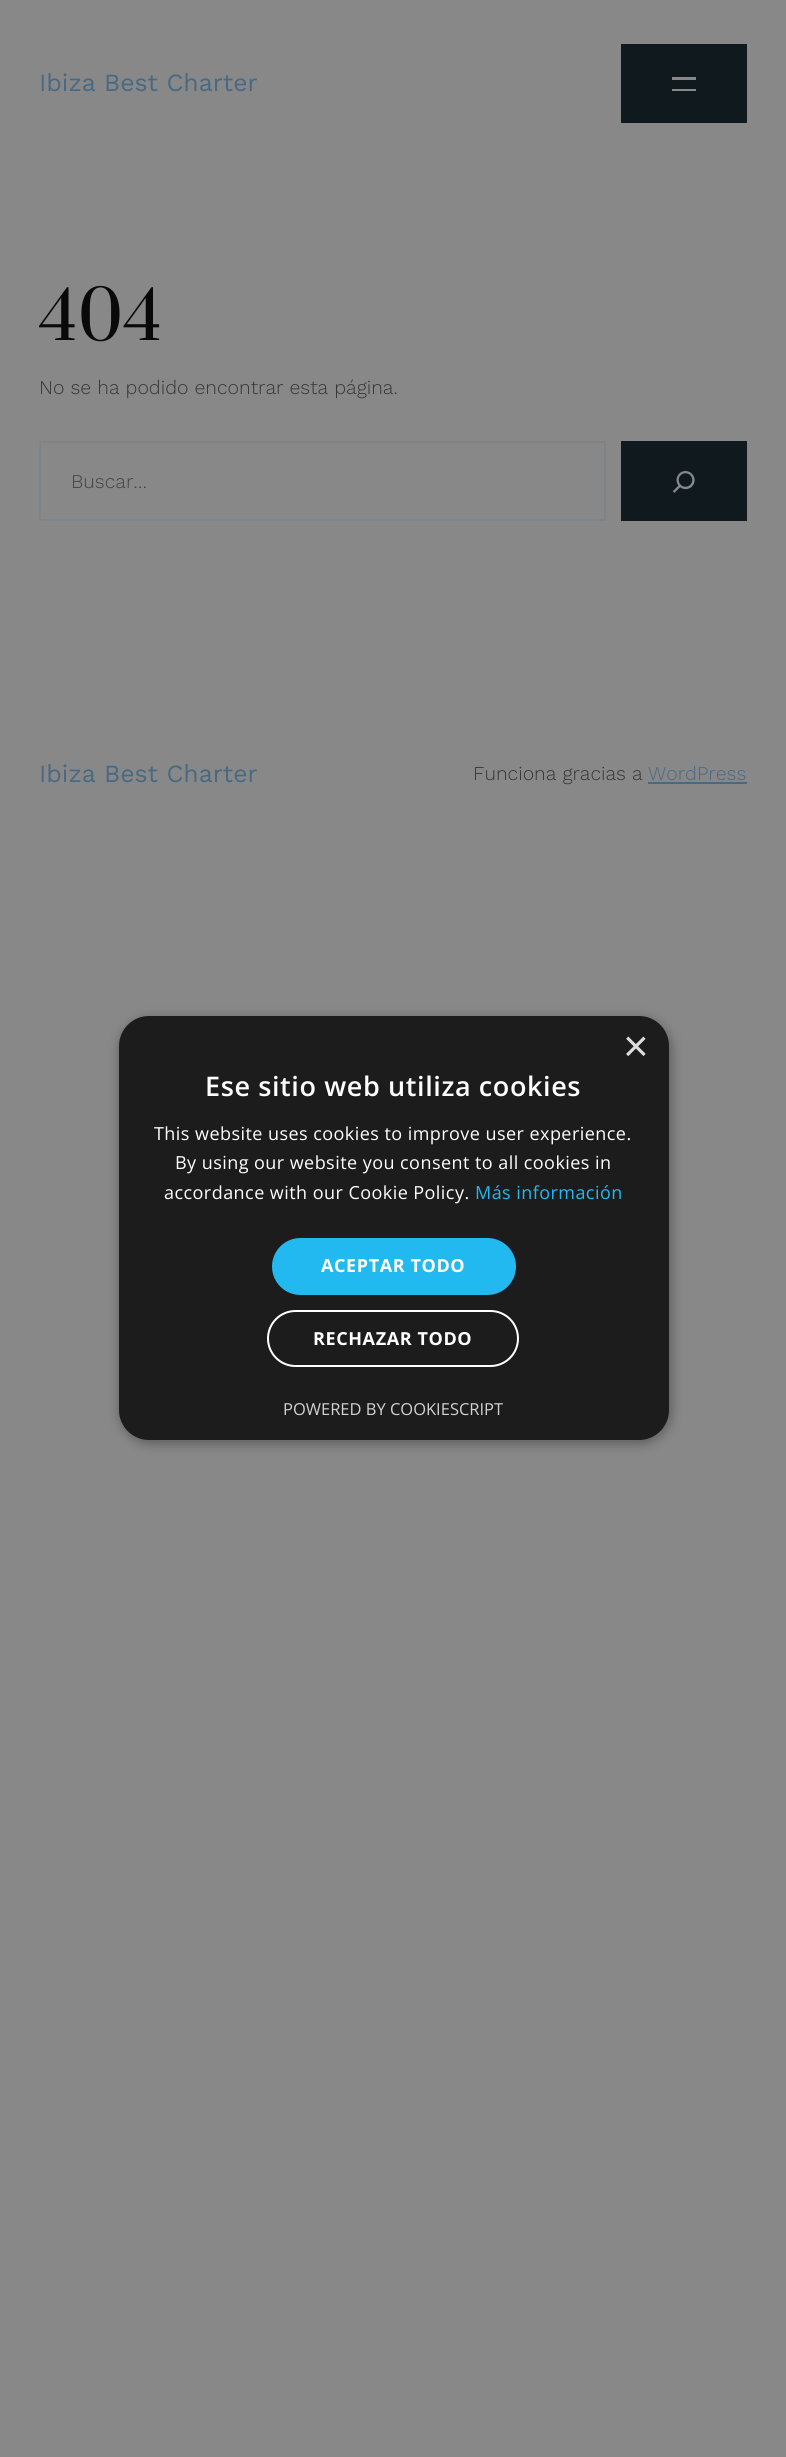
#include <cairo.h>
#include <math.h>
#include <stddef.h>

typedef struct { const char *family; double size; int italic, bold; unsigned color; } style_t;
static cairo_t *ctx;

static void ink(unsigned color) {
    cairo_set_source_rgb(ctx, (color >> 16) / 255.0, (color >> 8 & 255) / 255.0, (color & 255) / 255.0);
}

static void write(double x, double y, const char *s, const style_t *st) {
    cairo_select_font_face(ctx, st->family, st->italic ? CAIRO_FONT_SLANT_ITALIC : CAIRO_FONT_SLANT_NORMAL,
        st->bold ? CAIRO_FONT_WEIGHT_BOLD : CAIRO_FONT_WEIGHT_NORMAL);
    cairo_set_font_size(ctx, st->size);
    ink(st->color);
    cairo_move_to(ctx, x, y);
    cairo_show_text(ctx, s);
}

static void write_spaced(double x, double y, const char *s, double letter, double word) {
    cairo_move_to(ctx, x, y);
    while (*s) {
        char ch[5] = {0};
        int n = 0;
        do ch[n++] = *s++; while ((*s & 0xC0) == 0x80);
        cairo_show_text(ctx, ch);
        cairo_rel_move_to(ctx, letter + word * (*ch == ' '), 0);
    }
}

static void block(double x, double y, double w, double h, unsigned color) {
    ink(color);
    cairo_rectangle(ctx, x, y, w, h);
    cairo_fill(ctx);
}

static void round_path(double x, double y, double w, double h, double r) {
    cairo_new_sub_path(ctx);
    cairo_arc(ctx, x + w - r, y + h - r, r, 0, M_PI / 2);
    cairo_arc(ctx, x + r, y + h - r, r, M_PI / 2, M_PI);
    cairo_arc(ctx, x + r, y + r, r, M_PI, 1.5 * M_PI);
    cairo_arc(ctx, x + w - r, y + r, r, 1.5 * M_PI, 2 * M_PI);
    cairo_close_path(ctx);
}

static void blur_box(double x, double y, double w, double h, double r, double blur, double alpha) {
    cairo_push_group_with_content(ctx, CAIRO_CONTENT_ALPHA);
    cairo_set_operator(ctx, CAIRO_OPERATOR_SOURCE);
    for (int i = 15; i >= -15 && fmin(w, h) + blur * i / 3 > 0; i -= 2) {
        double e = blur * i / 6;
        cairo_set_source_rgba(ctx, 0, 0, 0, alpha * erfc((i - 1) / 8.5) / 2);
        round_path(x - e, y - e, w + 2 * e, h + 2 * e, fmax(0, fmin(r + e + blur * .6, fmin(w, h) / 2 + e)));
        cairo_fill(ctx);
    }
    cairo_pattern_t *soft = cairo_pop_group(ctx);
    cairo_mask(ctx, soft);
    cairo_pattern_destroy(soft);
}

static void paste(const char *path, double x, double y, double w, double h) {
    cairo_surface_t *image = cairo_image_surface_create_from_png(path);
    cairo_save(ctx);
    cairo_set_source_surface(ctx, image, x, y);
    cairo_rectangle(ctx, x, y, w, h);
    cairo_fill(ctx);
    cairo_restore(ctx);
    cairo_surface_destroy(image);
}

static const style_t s1 = {"Work Sans", 24.75, 0, 0, 0x486982};
static const style_t s2 = {"Prata", 66, 0, 0, 0x090909};
static const style_t s3 = {"Work Sans Light", 19.5, 0, 0, 0x363636};
static const style_t s4 = {"Work Sans Light", 19.5, 0, 0, 0x434343};
static const style_t s5 = {"Work Sans Light", 19.5, 0, 0, 0x486982};
static const style_t s6 = {"Liberation Sans", 44, 0, 0, 0xdddddd};
static const style_t s7 = {"Open Sans", 16.5, 0, 0, 0xd2d2d2};

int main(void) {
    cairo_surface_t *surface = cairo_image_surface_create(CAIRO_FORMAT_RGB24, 786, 2457);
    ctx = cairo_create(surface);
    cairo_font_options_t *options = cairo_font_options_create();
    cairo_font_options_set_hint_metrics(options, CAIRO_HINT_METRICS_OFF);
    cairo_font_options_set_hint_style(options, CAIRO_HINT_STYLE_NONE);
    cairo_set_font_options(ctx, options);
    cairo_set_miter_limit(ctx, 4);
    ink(0x888888);
    cairo_paint(ctx);
    write(39, 91, "Ibiza Best Charter", &s1);
    block(621, 44, 126, 79, 0x10191e);
    block(672, 77, 24, 3, 0x888888);
    block(672, 89, 24, 2, 0x888888);
    write(39, 340, "404", &s2);
    write(39, 394, "No se ha podido encontrar esta página.", &s3);
    cairo_rectangle(ctx, 40, 442, 565, 78);
    ink(0x7d8387);
    cairo_stroke(ctx);
    write(71, 488, "Buscar…", &s4);
    block(621, 441, 126, 80, 0x10191e);
    paste("pic1.png", 672, 471, 23, 22);
    write(39, 782, "Ibiza Best Charter", &s1);
    write(473, 780, "Funciona gracias a", &s3);
    write(648, 780, "WordPress", &s5);
    block(648, 782, 99, 2, 0x486982);
    ink(0x000000);
    blur_box(120, 1019, 551, 424, 30, 6, 0.35);
    ink(0x1c1c1c);
    round_path(119, 1016, 550, 424, 30);
    cairo_fill(ctx);
    write(623, 1061, "×", &s6);
    cairo_select_font_face(ctx, "Open Sans SemiBold", CAIRO_FONT_SLANT_NORMAL, CAIRO_FONT_WEIGHT_NORMAL);
    cairo_set_font_size(ctx, 27);
    ink(0xffffff);
    write_spaced(205, 1096, "Ese sitio web utiliza cookies", 0.6, 0);
    cairo_select_font_face(ctx, "Open Sans", CAIRO_FONT_SLANT_NORMAL, CAIRO_FONT_WEIGHT_NORMAL);
    cairo_set_font_size(ctx, 18);
    write_spaced(154, 1140, "This website uses cookies to improve user experience.", 0.45, 0);
    write_spaced(175, 1169, "By using our website you consent to all cookies in", 0.45, 0);
    write_spaced(164, 1199, "accordance with our Cookie Policy.", 0.45, 0);
    ink(0x22b8f0);
    write_spaced(475, 1199, "Más información", 0.45, 0);
    round_path(272, 1238, 244, 57, 28.5);
    cairo_fill(ctx);
    cairo_select_font_face(ctx, "Open Sans", CAIRO_FONT_SLANT_NORMAL, CAIRO_FONT_WEIGHT_BOLD);
    ink(0xffffff);
    write_spaced(321, 1272, "ACEPTAR TODO", 0.6, 0);
    round_path(268, 1311, 250, 55, 27.5);
    cairo_stroke(ctx);
    write_spaced(313, 1345, "RECHAZAR TODO", 0.6, 0);
    write(283, 1415, "POWERED BY COOKIESCRIPT", &s7);
    cairo_surface_write_to_png(surface, "screenshot.png");
    cairo_font_options_destroy(options);
    cairo_destroy(ctx);
    cairo_surface_destroy(surface);
    return 0;
}
